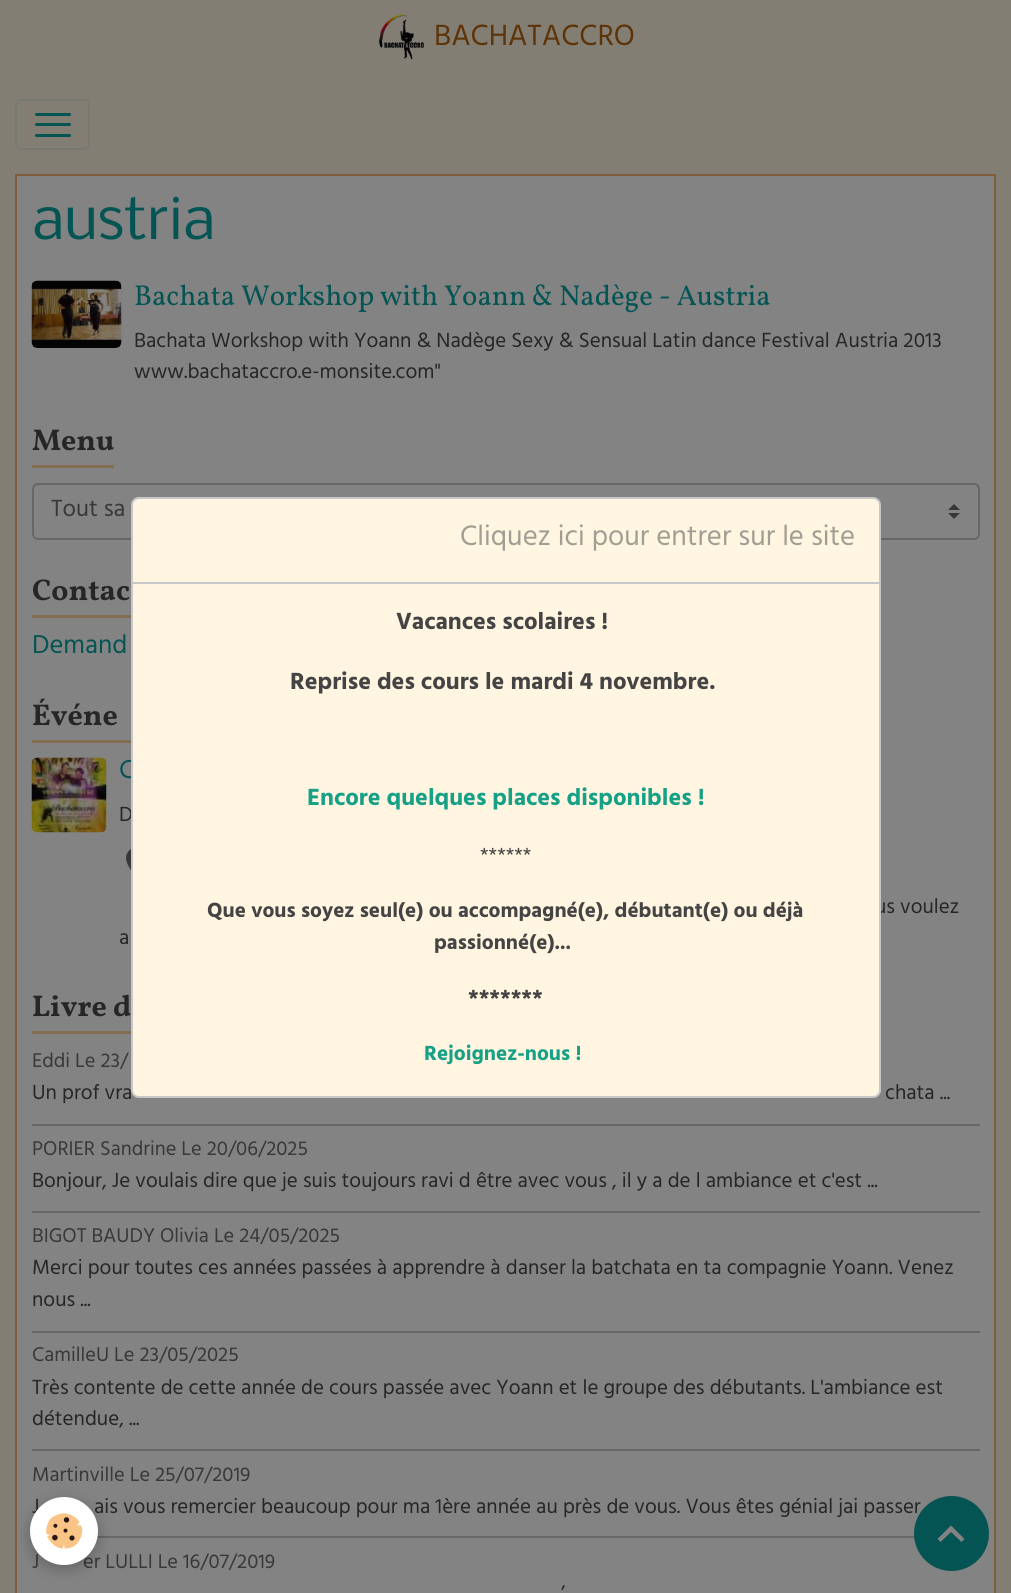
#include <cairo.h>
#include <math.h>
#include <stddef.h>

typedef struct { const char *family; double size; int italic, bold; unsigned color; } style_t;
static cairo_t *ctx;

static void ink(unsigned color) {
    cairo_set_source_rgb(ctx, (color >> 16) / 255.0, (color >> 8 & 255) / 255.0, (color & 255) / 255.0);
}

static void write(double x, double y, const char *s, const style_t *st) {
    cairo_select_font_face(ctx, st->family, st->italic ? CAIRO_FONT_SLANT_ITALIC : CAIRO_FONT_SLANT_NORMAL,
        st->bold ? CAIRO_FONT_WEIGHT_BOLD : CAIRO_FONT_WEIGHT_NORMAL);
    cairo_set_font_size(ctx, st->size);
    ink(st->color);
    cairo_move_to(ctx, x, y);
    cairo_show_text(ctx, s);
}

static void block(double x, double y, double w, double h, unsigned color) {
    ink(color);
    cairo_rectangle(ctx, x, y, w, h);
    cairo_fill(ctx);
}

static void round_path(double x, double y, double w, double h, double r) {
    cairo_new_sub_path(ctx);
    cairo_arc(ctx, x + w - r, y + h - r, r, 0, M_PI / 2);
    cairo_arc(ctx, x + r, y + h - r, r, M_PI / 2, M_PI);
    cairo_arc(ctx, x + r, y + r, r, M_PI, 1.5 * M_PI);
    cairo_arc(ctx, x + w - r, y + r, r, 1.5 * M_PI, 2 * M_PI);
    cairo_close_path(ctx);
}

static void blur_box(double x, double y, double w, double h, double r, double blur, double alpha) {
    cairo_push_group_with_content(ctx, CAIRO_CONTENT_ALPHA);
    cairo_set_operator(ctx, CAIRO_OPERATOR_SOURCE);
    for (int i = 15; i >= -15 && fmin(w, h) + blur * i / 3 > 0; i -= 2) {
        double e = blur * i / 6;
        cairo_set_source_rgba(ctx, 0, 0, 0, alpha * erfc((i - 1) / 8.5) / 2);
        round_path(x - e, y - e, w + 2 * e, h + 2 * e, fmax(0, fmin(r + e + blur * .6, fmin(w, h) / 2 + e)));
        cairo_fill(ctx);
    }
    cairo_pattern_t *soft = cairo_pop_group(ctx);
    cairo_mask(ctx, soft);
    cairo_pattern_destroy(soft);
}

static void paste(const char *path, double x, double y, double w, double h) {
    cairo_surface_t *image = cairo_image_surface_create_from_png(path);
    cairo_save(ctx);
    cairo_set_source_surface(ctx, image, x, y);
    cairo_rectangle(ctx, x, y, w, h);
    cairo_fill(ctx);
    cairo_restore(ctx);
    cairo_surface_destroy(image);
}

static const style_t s1 = {"Hind Guntur", 30, 0, 0, 0x5e3307};
static const style_t s2 = {"Nobile", 55, 0, 0, 0x055454};
static const style_t s3 = {"Vollkorn", 28.8, 0, 0, 0x055454};
static const style_t s4 = {"Hind Guntur", 21, 0, 0, 0x262626};
static const style_t s5 = {"Vollkorn", 30, 0, 1, 0x262626};
static const style_t s6 = {"Hind Guntur", 24, 0, 0, 0x383838};
static const style_t s7 = {"Hind Guntur", 26.5, 0, 0, 0x055454};
static const style_t s8 = {"Hind Guntur", 20.4, 0, 0, 0x383838};
static const style_t s9 = {"Hind Guntur", 28.8, 0, 0, 0xa29d93};
static const style_t s10 = {"Hind Guntur", 24, 0, 1, 0x444444};
static const style_t s11 = {"Hind Guntur", 24, 0, 1, 0x16a085};
static const style_t s12 = {"Hind Guntur", 21, 0, 0, 0x444444};
static const style_t s13 = {"Hind Guntur", 21, 0, 1, 0x444444};
static const style_t s14 = {"Hind Guntur", 21, 0, 1, 0x16a085};

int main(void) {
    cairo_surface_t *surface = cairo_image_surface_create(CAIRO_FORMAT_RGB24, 1011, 1593);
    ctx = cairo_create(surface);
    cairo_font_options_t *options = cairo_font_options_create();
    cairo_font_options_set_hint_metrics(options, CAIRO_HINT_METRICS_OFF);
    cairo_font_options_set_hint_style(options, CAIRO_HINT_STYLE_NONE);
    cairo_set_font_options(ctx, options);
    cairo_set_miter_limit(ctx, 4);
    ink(0x837e74);
    cairo_paint(ctx);
    paste("pic1.png", 379, 14, 45, 46);
    write(434, 45, "BACHATACCRO", &s1);
    round_path(16, 100, 73, 49, 5);
    ink(0x777a71);
    cairo_stroke(ctx);
    ink(0x055454);
    round_path(35, 113, 36, 3, 1.5);
    cairo_fill(ctx);
    round_path(35, 123, 36, 3, 1.5);
    cairo_fill(ctx);
    round_path(35, 134, 36, 3, 1.5);
    cairo_fill(ctx);
    ink(0x838383);
    cairo_rectangle(ctx, 16, 175, 979, 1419);
    cairo_fill_preserve(ctx);
    ink(0x7f5d39);
    cairo_stroke(ctx);
    write(32, 239, "austria", &s2);
    paste("pic2.png", 31, 280, 91, 68);
    write(134, 305, "Bachata Workshop with Yoann & Nadège - Austria", &s3);
    write(134, 347, "Bachata Workshop with Yoann & Nadège Sexy & Sensual Latin dance Festival Austria 2013", &s4);
    write(134, 378, "www.bachataccro.e-monsite.com\"", &s4);
    block(32, 465, 82, 3, 0x836d51);
    write(32, 450, "Menu", &s5);
    paste("pic3.png", 948, 504, 12, 15);
    round_path(33, 484, 946, 55, 5);
    ink(0x676767);
    cairo_stroke(ctx);
    write(51, 516, "Tout sa", &s6);
    block(32, 615, 99, 3, 0x836d51);
    write(32, 600, "Contac", &s5);
    write(32, 653, "Demand", &s7);
    block(32, 740, 99, 3, 0x836d51);
    write(32, 725, "Événe", &s5);
    paste("pic4.png", 31, 757, 76, 76);
    write(119, 778, "C", &s7);
    write(119, 821, "D", &s4);
    paste("pic5.png", 126, 849, 5, 22);
    write(875, 913, "us voulez", &s4);
    write(119, 944, "a", &s4);
    block(32, 1031, 99, 3, 0x836d51);
    write(32, 1016, "Livre d", &s5);
    write(32, 1067, "Eddi Le 23/", &s8);
    write(32, 1099, "Un prof vra", &s4);
    write(885, 1099, "chata ...", &s4);
    block(32, 1124, 948, 2, 0x676767);
    write(32, 1155, "PORIER Sandrine Le 20/06/2025", &s8);
    write(32, 1187, "Bonjour, Je voulais dire que je suis toujours ravi d être avec vous , il y a de l ambiance et c'est ...", &s4);
    block(32, 1211, 948, 2, 0x676767);
    write(32, 1242, "BIGOT BAUDY Olivia Le 24/05/2025", &s8);
    write(32, 1274, "Merci pour toutes ces années passées à apprendre à danser la batchata en ta compagnie Yoann. Venez", &s4);
    write(32, 1306, "nous ...", &s4);
    block(32, 1331, 948, 2, 0x676767);
    write(32, 1361, "CamilleU Le 23/05/2025", &s8);
    write(32, 1394, "Très contente de cette année de cours passée avec Yoann et le groupe des débutants. L'ambiance est", &s4);
    write(32, 1425, "détendue, ...", &s4);
    block(32, 1449, 948, 2, 0x676767);
    write(32, 1481, "Martinville Le 25/07/2019", &s8);
    write(32, 1513, "J", &s4);
    write(94, 1513, "ais vous remercier beaucoup pour ma 1ère année au près de vous. Vous êtes génial jai passer", &s4);
    block(97, 1536, 818, 2, 0x676767);
    write(32, 1568, "J", &s8);
    write(83, 1568, "er LULLI Le 16/07/2019", &s8);
    write(561, 1600, "’", &s4);
    ink(0xfff5e1);
    round_path(132, 498, 748, 599, 7);
    cairo_fill_preserve(ctx);
    ink(0xc7c7c7);
    cairo_stroke(ctx);
    block(132, 582, 747, 2, 0xc7c7c7);
    write(460, 545, "Cliquez ici pour entrer sur le site", &s9);
    write(396, 629, "Vacances scolaires !", &s10);
    write(290, 689, "Reprise des cours le mardi 4 novembre.", &s10);
    write(307, 805, "Encore quelques places disponibles !", &s11);
    write(480, 862, "******", &s12);
    write(207, 917, "Que vous soyez seul(e) ou accompagné(e), débutant(e) ou déjà", &s13);
    write(434, 949, "passionné(e)...", &s13);
    write(468, 1004, "*******", &s13);
    write(424, 1060, "Rejoignez-nous !", &s14);
    ink(0x000000);
    blur_box(30, 1502, 68, 67, 33.5, 7.5, 0.24);
    ink(0xffffff);
    cairo_arc(ctx, 64, 1531, 34, 0, 2 * M_PI);
    cairo_fill(ctx);
    paste("pic6.png", 46, 1513, 37, 36);
    ink(0x055454);
    cairo_arc(ctx, 951.5, 1533.5, 37.5, 0, 2 * M_PI);
    cairo_fill(ctx);
    ink(0x838383);
    cairo_new_path(ctx);
    cairo_move_to(ctx, 951, 1525.5);
    cairo_line_to(ctx, 964.5, 1539);
    cairo_line_to(ctx, 961.5, 1542);
    cairo_line_to(ctx, 951, 1532);
    cairo_line_to(ctx, 940.5, 1542);
    cairo_line_to(ctx, 937.5, 1539);
    cairo_close_path(ctx);
    cairo_fill(ctx);
    cairo_surface_write_to_png(surface, "screenshot.png");
    cairo_font_options_destroy(options);
    cairo_destroy(ctx);
    cairo_surface_destroy(surface);
    return 0;
}
